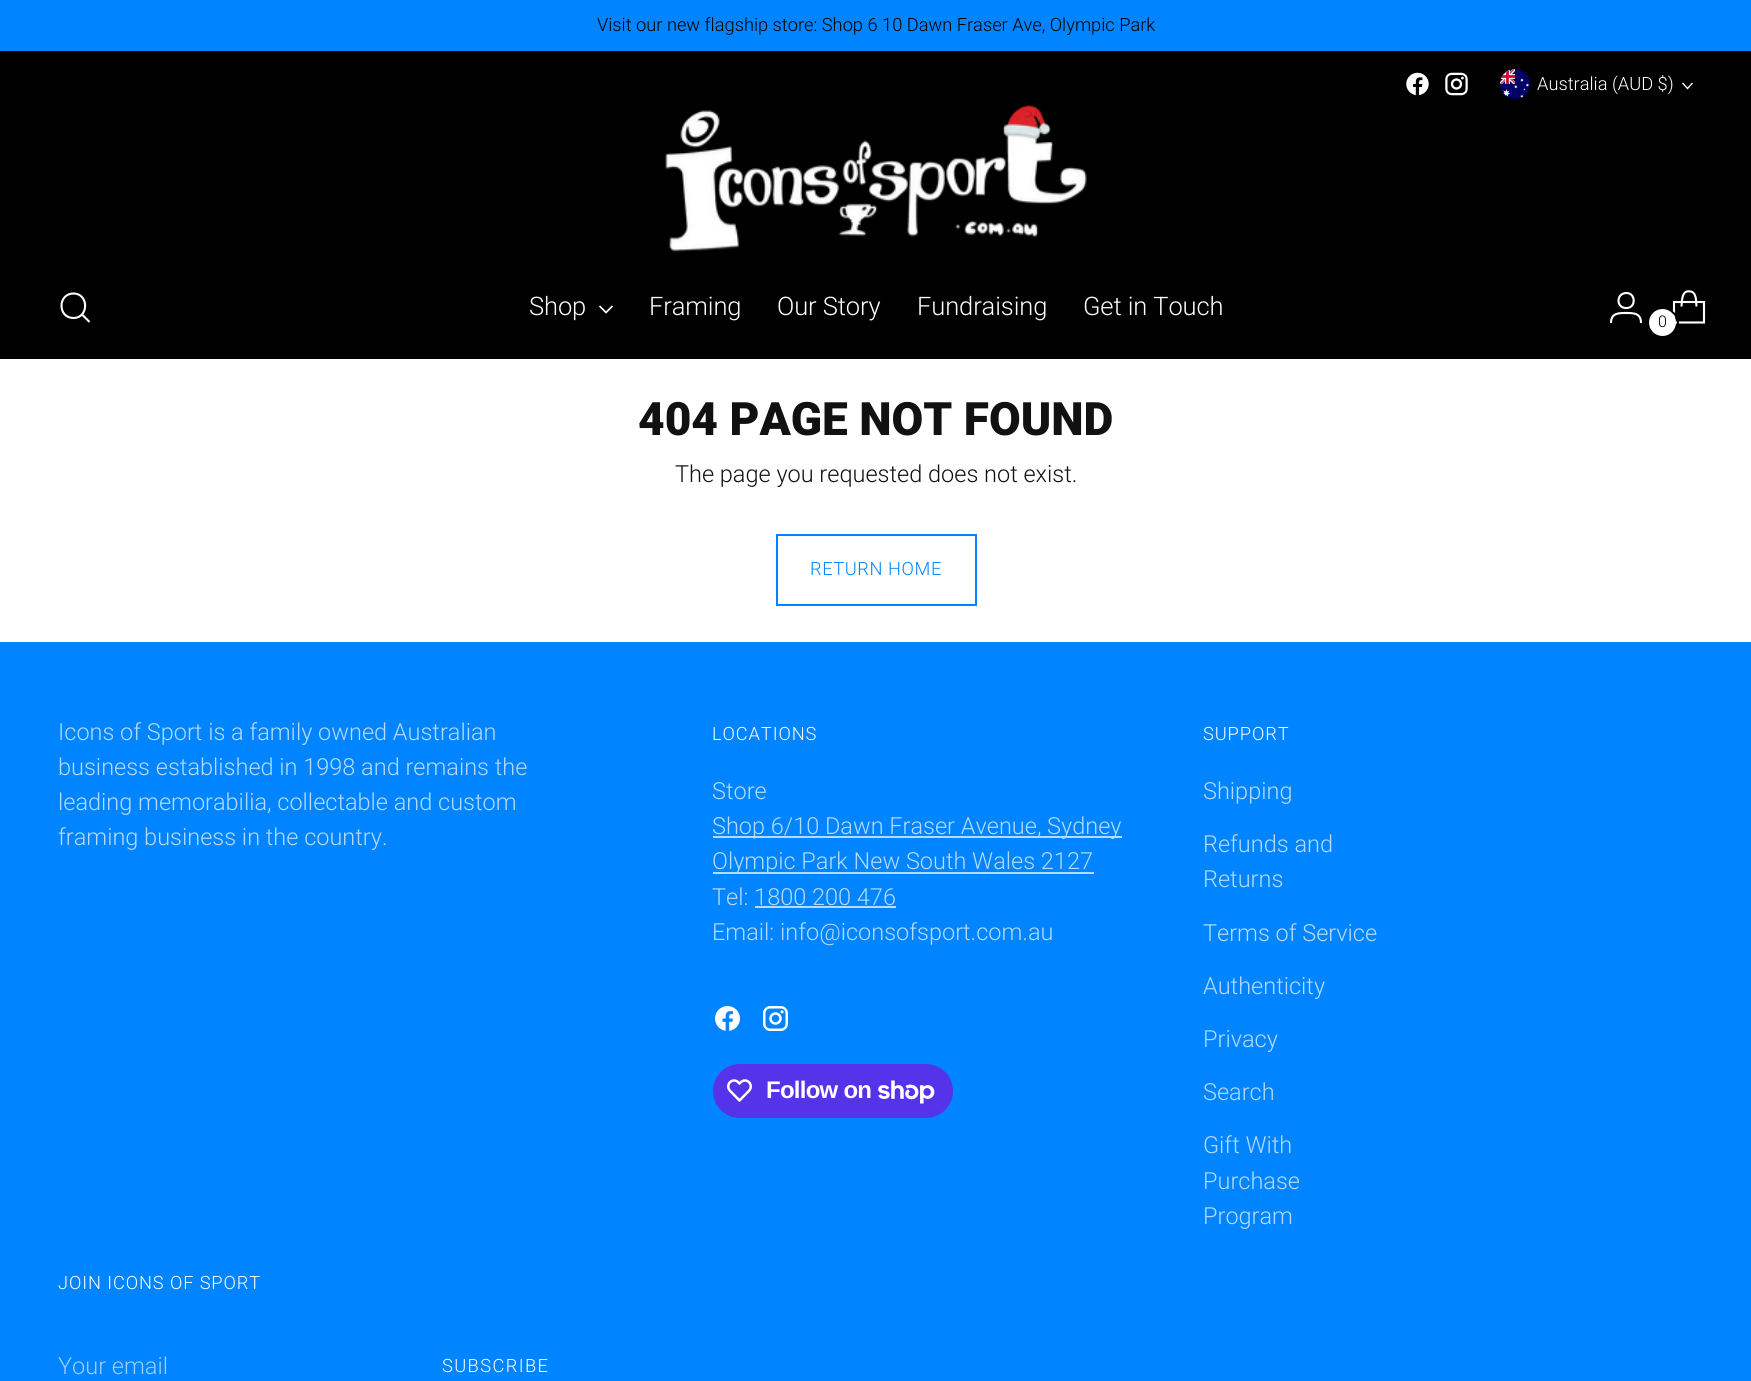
#include <cairo.h>
#include <math.h>
#include <stddef.h>

typedef struct { const char *family; double size; int italic, bold; unsigned color; } style_t;
static cairo_t *ctx;

static void ink(unsigned color) {
    cairo_set_source_rgb(ctx, (color >> 16) / 255.0, (color >> 8 & 255) / 255.0, (color & 255) / 255.0);
}

static void write(double x, double y, const char *s, const style_t *st) {
    cairo_select_font_face(ctx, st->family, st->italic ? CAIRO_FONT_SLANT_ITALIC : CAIRO_FONT_SLANT_NORMAL,
        st->bold ? CAIRO_FONT_WEIGHT_BOLD : CAIRO_FONT_WEIGHT_NORMAL);
    cairo_set_font_size(ctx, st->size);
    ink(st->color);
    cairo_move_to(ctx, x, y);
    cairo_show_text(ctx, s);
}

static void write_spaced(double x, double y, const char *s, double letter, double word) {
    cairo_move_to(ctx, x, y);
    while (*s) {
        char ch[5] = {0};
        int n = 0;
        do ch[n++] = *s++; while ((*s & 0xC0) == 0x80);
        cairo_show_text(ctx, ch);
        cairo_rel_move_to(ctx, letter + word * (*ch == ' '), 0);
    }
}

static void block(double x, double y, double w, double h, unsigned color) {
    ink(color);
    cairo_rectangle(ctx, x, y, w, h);
    cairo_fill(ctx);
}

static void round_path(double x, double y, double w, double h, double r) {
    cairo_new_sub_path(ctx);
    cairo_arc(ctx, x + w - r, y + h - r, r, 0, M_PI / 2);
    cairo_arc(ctx, x + r, y + h - r, r, M_PI / 2, M_PI);
    cairo_arc(ctx, x + r, y + r, r, M_PI, 1.5 * M_PI);
    cairo_arc(ctx, x + w - r, y + r, r, 1.5 * M_PI, 2 * M_PI);
    cairo_close_path(ctx);
}

static void paste(const char *path, double x, double y, double w, double h) {
    cairo_surface_t *image = cairo_image_surface_create_from_png(path);
    cairo_save(ctx);
    cairo_set_source_surface(ctx, image, x, y);
    cairo_rectangle(ctx, x, y, w, h);
    cairo_fill(ctx);
    cairo_restore(ctx);
    cairo_surface_destroy(image);
}

static const style_t s1 = {"Roboto Light", 18.25, 0, 0, 0x000000};
static const style_t s2 = {"Roboto Light", 18.25, 0, 0, 0xffffff};
static const style_t s3 = {"Roboto Light", 16, 0, 0, 0x000000};
static const style_t s4 = {"Roboto Black", 46, 0, 0, 0x111111};
static const style_t s5 = {"Roboto Light", 23.5, 0, 0, 0x111111};
static const style_t s6 = {"Roboto Light", 23.5, 0, 0, 0xb3daff};
static const style_t s7 = {"Roboto Light", 23.5, 0, 0, 0x99ceff};

int main(void) {
    cairo_surface_t *surface = cairo_image_surface_create(CAIRO_FORMAT_RGB24, 1751, 1381);
    ctx = cairo_create(surface);
    cairo_font_options_t *options = cairo_font_options_create();
    cairo_font_options_set_hint_metrics(options, CAIRO_HINT_METRICS_OFF);
    cairo_font_options_set_hint_style(options, CAIRO_HINT_STYLE_NONE);
    cairo_set_font_options(ctx, options);
    cairo_set_miter_limit(ctx, 4);
    ink(0xffffff);
    cairo_paint(ctx);
    block(0, 0, 1751, 51, 0x0084ff);
    write(597, 31, "Visit our new flagship store: Shop 6 10 Dawn Fraser Ave, Olympic Park", &s1);
    block(0, 51, 1751, 308, 0x000000);
    paste("pic1.png", 1406, 72, 23, 24);
    paste("pic2.png", 1445, 72, 23, 24);
    paste("pic3.png", 1500, 69, 30, 30);
    write(1537, 90, "Australia (AUD $)", &s2);
    cairo_new_path(ctx);
    cairo_move_to(ctx, 1682.5, 83);
    cairo_line_to(ctx, 1687.5, 88.5);
    cairo_line_to(ctx, 1692.5, 83);
    cairo_set_line_width(ctx, 1.4);
    cairo_stroke(ctx);
    paste("pic4.png", 665, 105, 422, 148);
    cairo_new_path(ctx);
    cairo_move_to(ctx, 73.5, 318);
    cairo_curve_to(ctx, 89, 318, 89, 293.5, 73.5, 293.5);
    cairo_curve_to(ctx, 57.5, 293.5, 57.5, 318, 73.5, 318);
    cairo_close_path(ctx);
    cairo_set_line_width(ctx, 2.1);
    cairo_set_line_cap(ctx, CAIRO_LINE_CAP_ROUND);
    cairo_stroke(ctx);
    cairo_new_path(ctx);
    cairo_move_to(ctx, 82, 314.5);
    cairo_line_to(ctx, 89.5, 322);
    cairo_set_line_cap(ctx, CAIRO_LINE_CAP_BUTT);
    cairo_stroke(ctx);
    cairo_set_font_size(ctx, 25.5);
    write_spaced(529, 315, "Shop", -0.1, 0);
    cairo_new_path(ctx);
    cairo_move_to(ctx, 599.5, 306);
    cairo_line_to(ctx, 606, 312.5);
    cairo_line_to(ctx, 612.5, 306);
    cairo_set_line_width(ctx, 1.7);
    cairo_stroke(ctx);
    write_spaced(649, 315, "Framing", -0.1, 0);
    write_spaced(777, 315, "Our Story", -0.1, 0);
    write_spaced(917, 315, "Fundraising", -0.1, 0);
    write_spaced(1083, 315, "Get in Touch", -0.1, 0);
    cairo_new_path(ctx);
    cairo_move_to(ctx, 1626, 308);
    cairo_curve_to(ctx, 1636.5, 308.5, 1636, 292.5, 1626, 293);
    cairo_curve_to(ctx, 1616, 293.5, 1616, 308, 1626, 308);
    cairo_close_path(ctx);
    cairo_move_to(ctx, 1611, 323);
    cairo_curve_to(ctx, 1611, 313, 1618.5, 313, 1626, 313);
    cairo_curve_to(ctx, 1633.5, 313, 1641, 313, 1641, 323);
    cairo_set_line_width(ctx, 2.1);
    cairo_stroke(ctx);
    cairo_new_path(ctx);
    cairo_move_to(ctx, 1696.5, 306.5);
    cairo_curve_to(ctx, 1696, 303, 1696.5, 299, 1695, 295.5);
    cairo_curve_to(ctx, 1694.5, 293.5, 1692.5, 291.5, 1690.5, 291.5);
    cairo_curve_to(ctx, 1681.5, 289.5, 1682, 301, 1681.5, 306.5);
    cairo_set_line_join(ctx, CAIRO_LINE_JOIN_BEVEL);
    cairo_stroke(ctx);
    cairo_new_path(ctx);
    cairo_move_to(ctx, 1704, 322.5);
    cairo_line_to(ctx, 1704, 302);
    cairo_line_to(ctx, 1674, 302);
    cairo_line_to(ctx, 1674, 322.5);
    cairo_close_path(ctx);
    cairo_set_line_join(ctx, CAIRO_LINE_JOIN_MITER);
    cairo_stroke(ctx);
    round_path(1648, 309, 30, 29, 14.5);
    ink(0x000000);
    cairo_set_line_width(ctx, 2);
    cairo_stroke(ctx);
    ink(0xffffff);
    cairo_arc(ctx, 1662.5, 322.5, 13.5, 0, 2 * M_PI);
    cairo_fill(ctx);
    write(1658, 327, "0", &s3);
    write(638, 435, "404 PAGE NOT FOUND", &s4);
    write(675, 482, "The page you requested does not exist.", &s5);
    cairo_rectangle(ctx, 777, 535, 199, 70);
    ink(0x0084ff);
    cairo_stroke(ctx);
    cairo_set_font_size(ctx, 18.25);
    write_spaced(810, 575, "RETURN HOME", 0.6, 0);
    block(0, 642, 1751, 739, 0x0084ff);
    write(58, 740, "Icons of Sport is a family owned Australian", &s6);
    write(58, 775, "business established in 1998 and remains the", &s6);
    write(58, 810, "leading memorabilia, collectable and custom", &s6);
    write(58, 845, "framing business in the country.", &s6);
    cairo_set_font_size(ctx, 18.25);
    ink(0xffffff);
    write_spaced(712, 740, "LOCATIONS", 0.9, 0);
    write(712, 799, "Store", &s6);
    block(713, 836, 409, 2, 0xb3daff);
    write(712, 834, "Shop 6/10 Dawn Fraser Avenue, Sydney", &s6);
    block(713, 872, 381, 2, 0xb3daff);
    write(712, 869, "Olympic Park New South Wales 2127", &s6);
    write(712, 905, "Tel: 1800 200 476", &s6);
    block(755, 906, 141, 2, 0xb3daff);
    write(712, 940, "Email: info@iconsofsport.com.au", &s6);
    paste("pic5.png", 715, 1006, 25, 25);
    paste("pic6.png", 763, 1006, 25, 25);
    ink(0x5433eb);
    round_path(713, 1064, 240, 54, 27);
    cairo_fill(ctx);
    paste("pic7.png", 727, 1079, 25, 23);
    cairo_select_font_face(ctx, "Liberation Sans", CAIRO_FONT_SLANT_NORMAL, CAIRO_FONT_WEIGHT_BOLD);
    cairo_set_font_size(ctx, 24);
    ink(0xffffff);
    write_spaced(766, 1098, "Follow on", -0.75, 0);
    paste("pic8.png", 878, 1080, 57, 24);
    cairo_select_font_face(ctx, "Roboto Light", CAIRO_FONT_SLANT_NORMAL, CAIRO_FONT_WEIGHT_NORMAL);
    cairo_set_font_size(ctx, 18.25);
    write_spaced(1203, 740, "SUPPORT", 0.9, 0);
    write(1203, 799, "Shipping", &s6);
    write(1203, 852, "Refunds and", &s6);
    write(1203, 887, "Returns", &s6);
    write(1203, 941, "Terms of Service", &s6);
    write(1203, 994, "Authenticity", &s6);
    write(1203, 1047, "Privacy", &s6);
    write(1203, 1100, "Search", &s6);
    write(1203, 1153, "Gift With", &s6);
    write(1203, 1189, "Purchase", &s6);
    write(1203, 1224, "Program", &s6);
    cairo_set_font_size(ctx, 18.25);
    ink(0xffffff);
    write_spaced(58, 1289, "JOIN ICONS OF SPORT", 0.9, 0);
    write(58, 1374, "Your email", &s7);
    cairo_set_font_size(ctx, 18.25);
    ink(0xffffff);
    write_spaced(442, 1372, "SUBSCRIBE", 1.4, 0);
    cairo_surface_write_to_png(surface, "screenshot.png");
    cairo_font_options_destroy(options);
    cairo_destroy(ctx);
    cairo_surface_destroy(surface);
    return 0;
}
